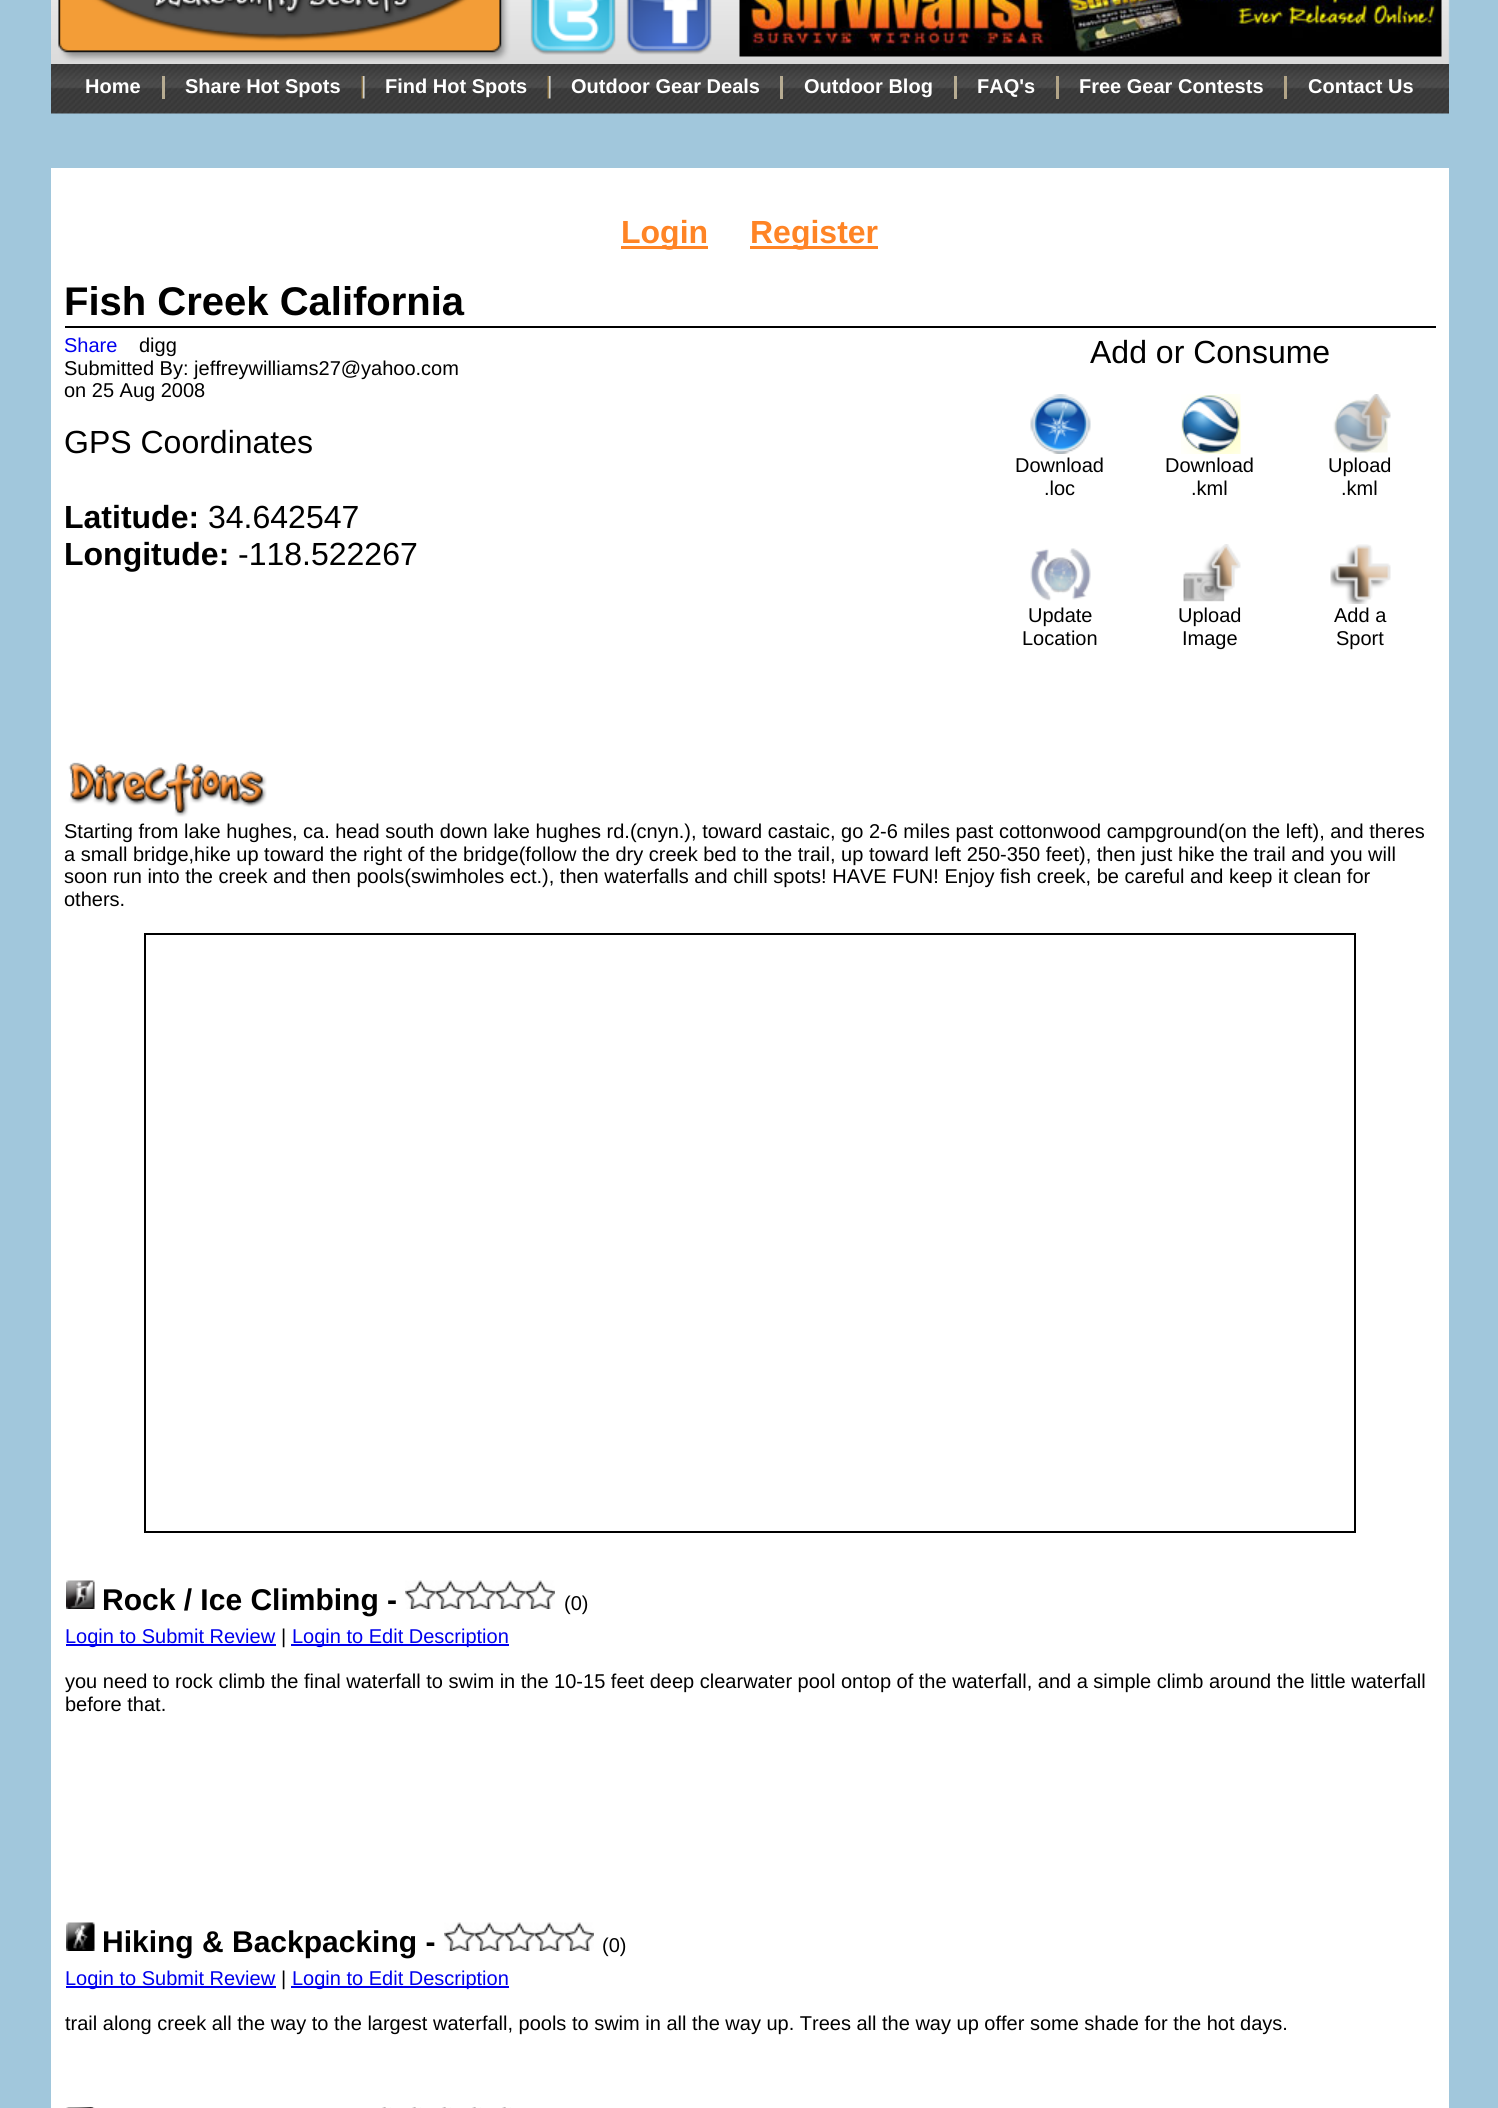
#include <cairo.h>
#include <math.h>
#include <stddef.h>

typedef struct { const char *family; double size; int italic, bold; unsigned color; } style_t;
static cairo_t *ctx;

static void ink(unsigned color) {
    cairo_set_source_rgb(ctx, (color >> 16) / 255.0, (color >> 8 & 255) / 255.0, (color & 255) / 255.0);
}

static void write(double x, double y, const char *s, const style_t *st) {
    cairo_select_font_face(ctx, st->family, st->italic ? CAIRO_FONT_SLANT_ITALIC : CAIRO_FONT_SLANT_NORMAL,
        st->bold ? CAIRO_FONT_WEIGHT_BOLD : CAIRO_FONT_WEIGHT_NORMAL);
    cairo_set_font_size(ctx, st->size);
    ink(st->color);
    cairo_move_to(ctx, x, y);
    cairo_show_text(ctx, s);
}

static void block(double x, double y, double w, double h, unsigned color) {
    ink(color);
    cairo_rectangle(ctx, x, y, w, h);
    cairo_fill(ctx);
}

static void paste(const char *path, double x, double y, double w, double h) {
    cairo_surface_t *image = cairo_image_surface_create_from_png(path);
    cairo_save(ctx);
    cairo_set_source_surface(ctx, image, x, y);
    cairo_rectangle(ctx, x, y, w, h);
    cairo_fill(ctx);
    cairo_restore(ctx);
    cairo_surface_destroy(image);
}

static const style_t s1 = {"Liberation Sans", 20, 0, 1, 0xffffff};
static const style_t s2 = {"Liberation Sans", 32, 0, 1, 0xff8425};
static const style_t s3 = {"Liberation Sans", 40, 0, 1, 0x000000};
static const style_t s4 = {"Liberation Sans", 20, 0, 0, 0x0000ee};
static const style_t s5 = {"Liberation Sans", 20, 0, 0, 0x000000};
static const style_t s6 = {"Liberation Sans", 32, 0, 0, 0x000000};
static const style_t s7 = {"Liberation Sans", 32, 0, 1, 0x000000};
static const style_t s8 = {"Liberation Sans", 30, 0, 1, 0x000000};

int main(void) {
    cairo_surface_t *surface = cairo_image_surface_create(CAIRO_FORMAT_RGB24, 1498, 2108);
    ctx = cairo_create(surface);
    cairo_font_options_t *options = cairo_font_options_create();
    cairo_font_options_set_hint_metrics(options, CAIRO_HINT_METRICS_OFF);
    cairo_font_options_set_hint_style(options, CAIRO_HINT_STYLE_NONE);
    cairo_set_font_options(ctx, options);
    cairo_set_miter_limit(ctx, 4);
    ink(0xa1c7dc);
    cairo_paint(ctx);
    paste("pic1.png", 51, 0, 1399, 64);
    paste("pic2.png", 530, 0, 86, 55);
    paste("pic3.png", 626, 0, 86, 55);
    paste("pic4.png", 739, 0, 703, 57);
    paste("pic5.png", 51, 64, 1398, 50);
    write(85, 93, "Home", &s1);
    block(162, 76, 3, 23, 0xb7ac92);
    write(185, 93, "Share Hot Spots", &s1);
    paste("pic6.png", 361, 76, 4, 23);
    write(385, 93, "Find Hot Spots", &s1);
    paste("pic6.png", 547, 76, 4, 23);
    write(571, 93, "Outdoor Gear Deals", &s1);
    block(780, 76, 3, 23, 0xb7ac92);
    write(804, 93, "Outdoor Blog", &s1);
    block(954, 76, 3, 23, 0xb7ac92);
    write(977, 93, "FAQ's", &s1);
    block(1056, 76, 3, 23, 0xb2a487);
    write(1079, 93, "Free Gear Contests", &s1);
    block(1284, 76, 3, 23, 0xb2a487);
    write(1308, 93, "Contact Us", &s1);
    block(51, 168, 1398, 1940, 0xffffff);
    block(621, 246, 87, 3, 0xff8425);
    write(621, 243, "Login", &s2);
    block(750, 246, 128, 3, 0xff8425);
    write(750, 243, "Register", &s2);
    block(65, 326, 1371, 2, 0x000000);
    write(64, 315, "Fish Creek California", &s3);
    write(64, 352, "Share", &s4);
    write(139, 352, "digg", &s5);
    write(64, 375, "Submitted By: jeffreywilliams27@yahoo.com", &s5);
    write(64, 397, "on 25 Aug 2008", &s5);
    write(64, 453, "GPS Coordinates", &s6);
    write(64, 528, "Latitude:", &s7);
    write(208, 528, "34.642547", &s6);
    write(64, 565, "Longitude:", &s7);
    write(238, 565, "-118.522267", &s6);
    write(1090, 363, "Add or Consume", &s6);
    paste("pic7.png", 1030, 394, 61, 60);
    write(1015, 472, "Download", &s5);
    write(1044, 495, ".loc", &s5);
    paste("pic8.png", 1181, 394, 60, 60);
    write(1165, 472, "Download", &s5);
    write(1191, 495, ".kml", &s5);
    paste("pic9.png", 1333, 394, 58, 59);
    write(1328, 472, "Upload", &s5);
    write(1341, 495, ".kml", &s5);
    paste("pic10.png", 1030, 548, 61, 53);
    write(1028, 622, "Update", &s5);
    write(1022, 645, "Location", &s5);
    paste("pic11.png", 1183, 544, 58, 58);
    write(1178, 622, "Upload", &s5);
    write(1182, 645, "Image", &s5);
    paste("pic12.png", 1330, 544, 61, 60);
    write(1334, 622, "Add a", &s5);
    write(1336, 645, "Sport", &s5);
    paste("pic13.png", 68, 762, 199, 55);
    write(64, 838, "Starting from lake hughes, ca. head south down lake hughes rd.(cnyn.), toward castaic, go 2-6 miles past cottonwood campground(on the left), and theres", &s5);
    write(64, 861, "a small bridge,hike up toward the right of the bridge(follow the dry creek bed to the trail, up toward left 250-350 feet), then just hike the trail and you will", &s5);
    write(64, 883, "soon run into the creek and then pools(swimholes ect.), then waterfalls and chill spots! HAVE FUN! Enjoy fish creek, be careful and keep it clean for", &s5);
    write(64, 906, "others.", &s5);
    cairo_rectangle(ctx, 145, 934, 1210, 598);
    cairo_stroke(ctx);
    paste("pic14.png", 66, 1580, 29, 29);
    write(102, 1610, "Rock / Ice Climbing -", &s8);
    paste("pic15.png", 405, 1580, 30, 29);
    paste("pic15.png", 435, 1580, 30, 29);
    paste("pic15.png", 465, 1580, 30, 29);
    paste("pic16.png", 495, 1580, 30, 29);
    paste("pic16.png", 525, 1580, 30, 29);
    write(564, 1610, "(0)", &s5);
    block(66, 1644, 210, 2, 0x0000ee);
    write(65, 1643, "Login to Submit Review", &s4);
    write(281, 1643, "|", &s5);
    block(291, 1644, 218, 2, 0x0000ee);
    write(292, 1643, "Login to Edit Description", &s4);
    write(65, 1688, "you need to rock climb the final waterfall to swim in the 10-15 feet deep clearwater pool ontop of the waterfall, and a simple climb around the little waterfall", &s5);
    write(65, 1711, "before that.", &s5);
    paste("pic17.png", 66, 1922, 29, 29);
    write(102, 1952, "Hiking & Backpacking -", &s8);
    paste("pic15.png", 444, 1922, 30, 29);
    paste("pic15.png", 474, 1922, 30, 29);
    paste("pic18.png", 504, 1922, 30, 29);
    paste("pic19.png", 534, 1922, 30, 29);
    paste("pic15.png", 564, 1922, 30, 29);
    write(602, 1952, "(0)", &s5);
    block(66, 1986, 210, 2, 0x0000ee);
    write(65, 1985, "Login to Submit Review", &s4);
    write(281, 1985, "|", &s5);
    block(291, 1986, 218, 2, 0x0000ee);
    write(292, 1985, "Login to Edit Description", &s4);
    write(65, 2030, "trail along creek all the way to the largest waterfall, pools to swim in all the way up. Trees all the way up offer some shade for the hot days.", &s5);
    paste("pic20.png", 66, 2107, 29, 1);
    paste("pic21.png", 382, 2107, 9, 1);
    paste("pic21.png", 412, 2107, 9, 1);
    paste("pic21.png", 442, 2107, 9, 1);
    paste("pic21.png", 472, 2107, 9, 1);
    paste("pic21.png", 502, 2107, 9, 1);
    cairo_surface_write_to_png(surface, "screenshot.png");
    cairo_font_options_destroy(options);
    cairo_destroy(ctx);
    cairo_surface_destroy(surface);
    return 0;
}
